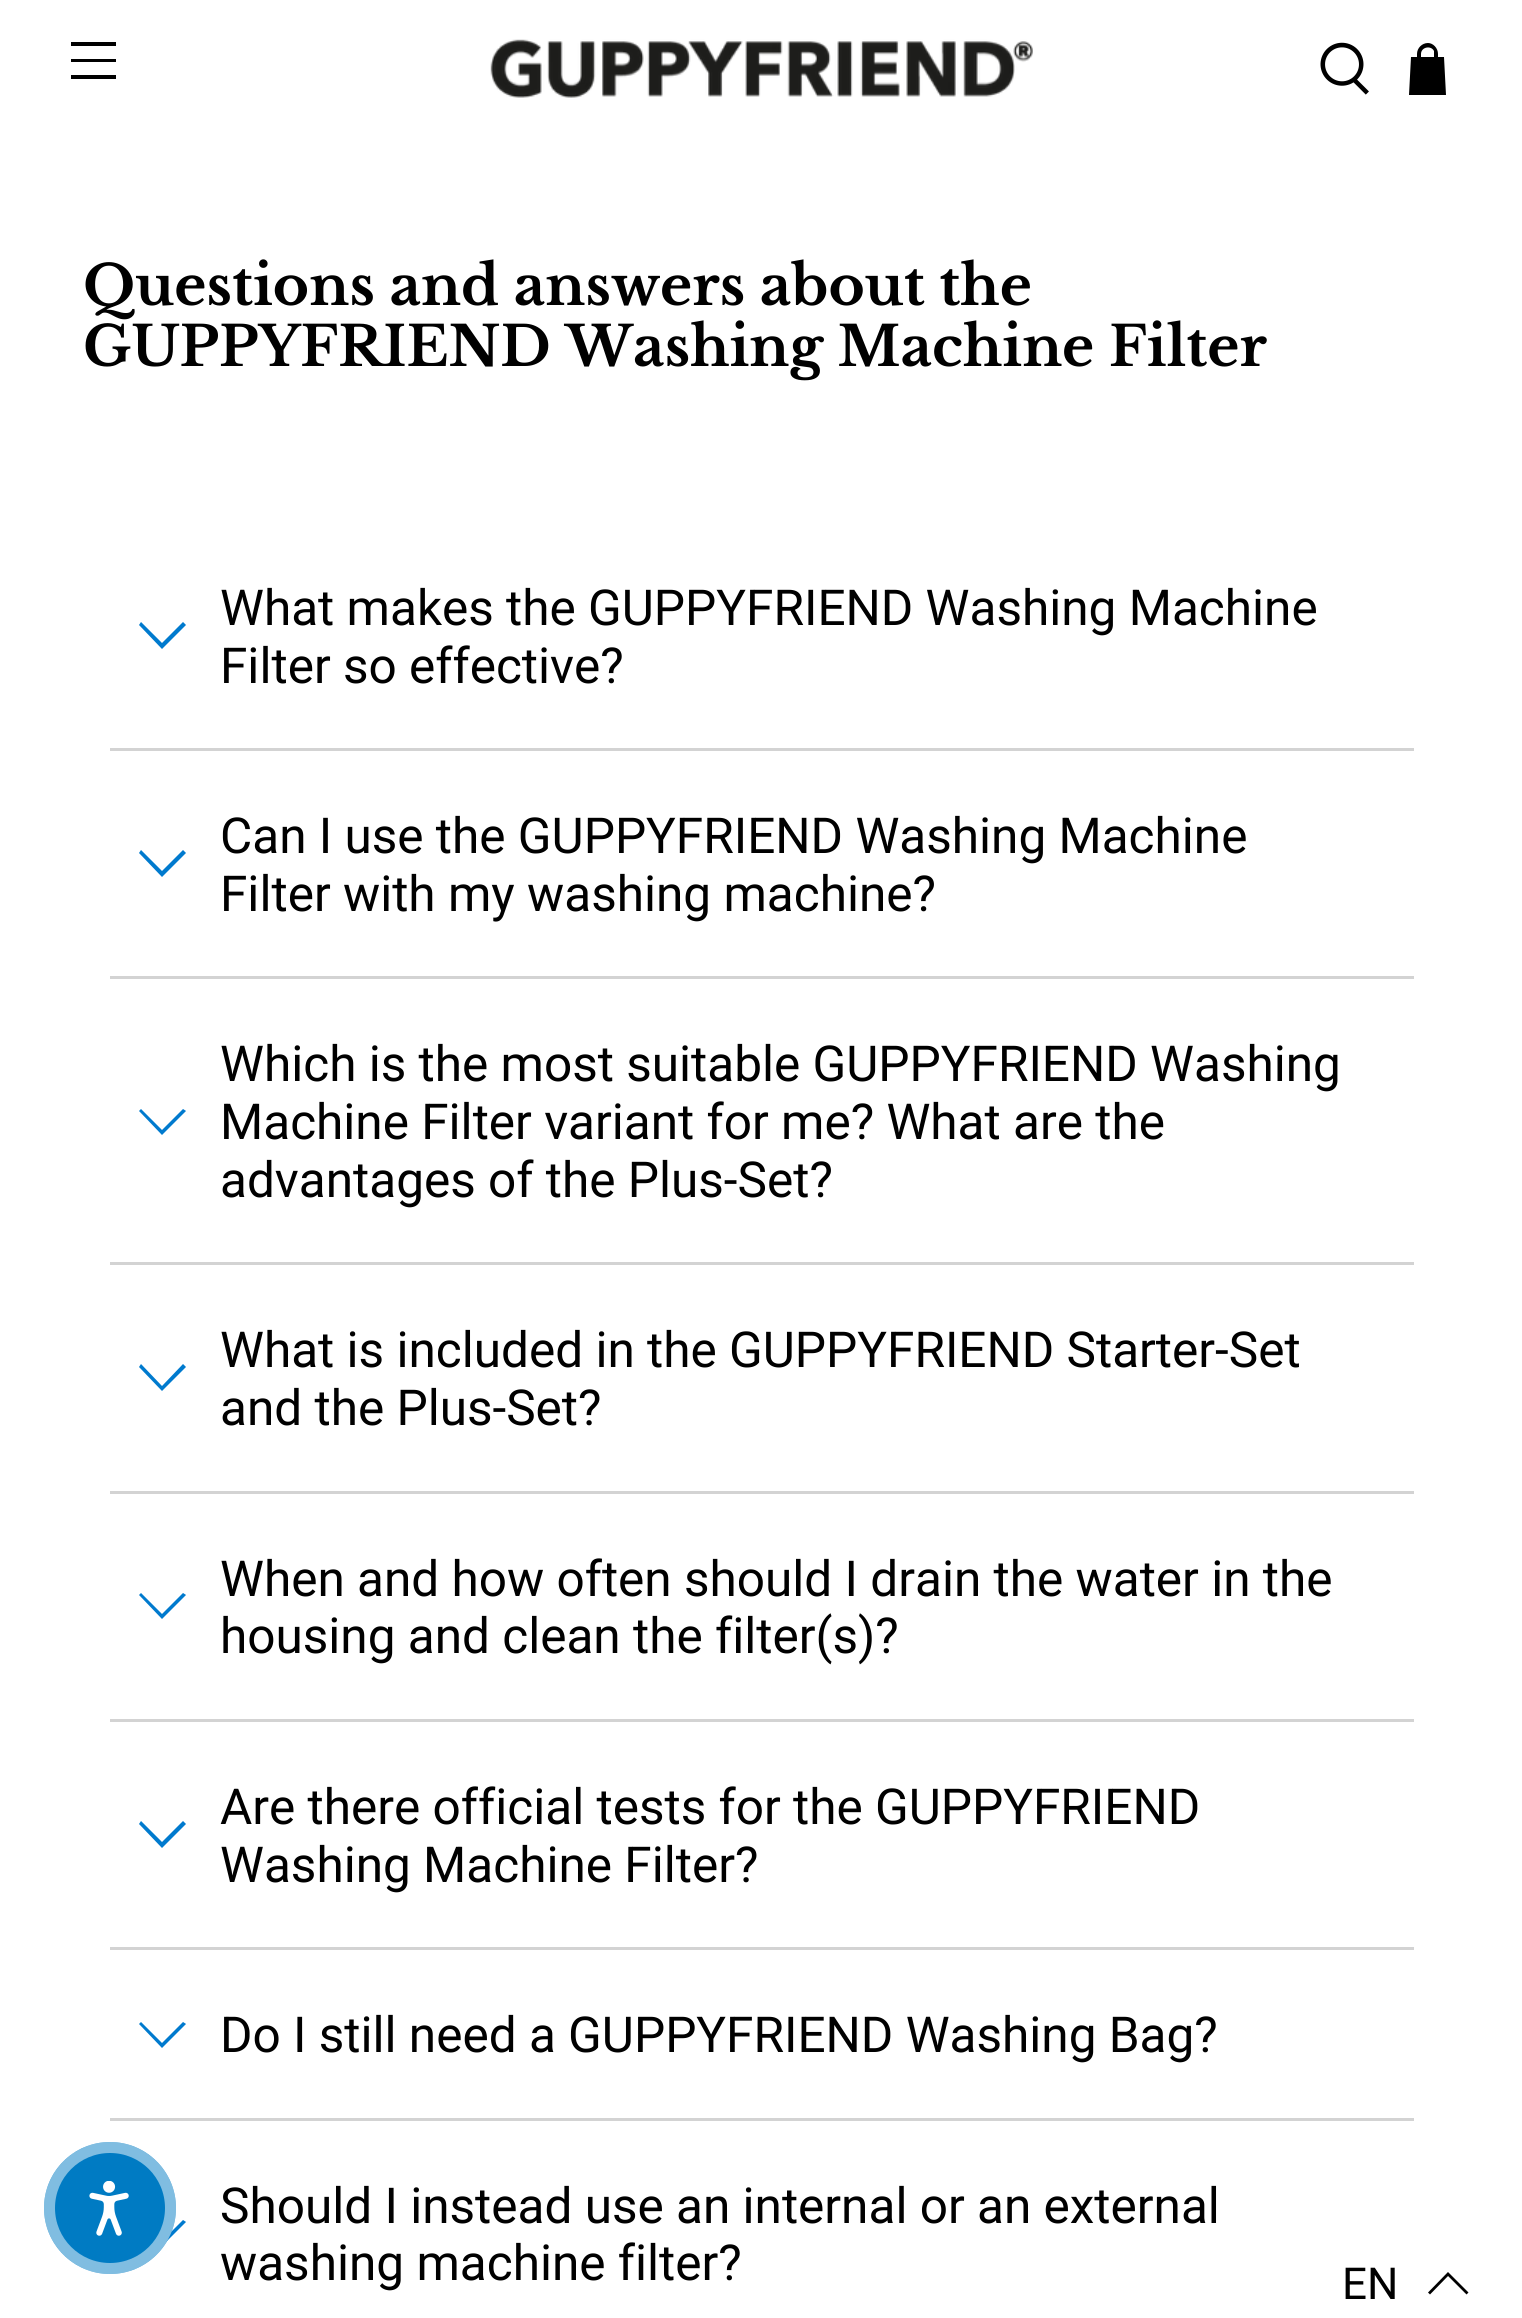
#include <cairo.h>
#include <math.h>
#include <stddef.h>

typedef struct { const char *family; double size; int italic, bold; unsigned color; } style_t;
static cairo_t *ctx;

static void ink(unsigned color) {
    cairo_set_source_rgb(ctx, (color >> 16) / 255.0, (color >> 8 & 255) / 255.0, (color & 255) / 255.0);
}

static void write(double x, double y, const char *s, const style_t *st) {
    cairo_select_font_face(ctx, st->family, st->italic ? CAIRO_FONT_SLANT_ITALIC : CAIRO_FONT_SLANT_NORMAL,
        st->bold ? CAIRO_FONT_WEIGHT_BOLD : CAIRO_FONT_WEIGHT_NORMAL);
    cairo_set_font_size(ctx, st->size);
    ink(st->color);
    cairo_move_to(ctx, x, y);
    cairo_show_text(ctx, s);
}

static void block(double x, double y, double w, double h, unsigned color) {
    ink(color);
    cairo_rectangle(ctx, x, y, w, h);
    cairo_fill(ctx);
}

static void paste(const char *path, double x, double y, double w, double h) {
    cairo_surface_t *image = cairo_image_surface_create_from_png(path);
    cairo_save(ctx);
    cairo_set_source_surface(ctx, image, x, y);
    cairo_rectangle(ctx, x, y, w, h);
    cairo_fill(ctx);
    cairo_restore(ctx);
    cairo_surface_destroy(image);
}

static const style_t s1 = {"Libre Baskerville", 55, 0, 1, 0x000000};
static const style_t s2 = {"Roboto", 49.5, 0, 0, 0x000000};
static const style_t s3 = {"Roboto", 44, 0, 0, 0x000000};

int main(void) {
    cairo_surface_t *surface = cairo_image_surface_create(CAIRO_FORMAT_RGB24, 1522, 2318);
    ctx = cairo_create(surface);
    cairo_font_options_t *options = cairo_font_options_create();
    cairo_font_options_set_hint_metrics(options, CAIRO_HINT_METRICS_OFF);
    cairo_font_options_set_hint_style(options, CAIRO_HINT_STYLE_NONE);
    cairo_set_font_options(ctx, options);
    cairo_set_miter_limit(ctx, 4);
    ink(0xffffff);
    cairo_paint(ctx);
    block(71, 42, 45, 4, 0x000000);
    block(71, 59, 45, 3, 0x000000);
    block(71, 75, 45, 4, 0x000000);
    paste("pic1.png", 490, 39, 543, 59);
    paste("pic2.png", 1320, 42, 49, 53);
    cairo_new_path(ctx);
    cairo_move_to(ctx, 1444, 57);
    cairo_line_to(ctx, 1438, 57);
    cairo_line_to(ctx, 1438, 54);
    cairo_curve_to(ctx, 1438, 48, 1433, 43, 1428, 43);
    cairo_curve_to(ctx, 1422, 43, 1417, 48, 1417, 54);
    cairo_line_to(ctx, 1417, 57);
    cairo_line_to(ctx, 1411, 57);
    cairo_line_to(ctx, 1409, 95);
    cairo_line_to(ctx, 1446, 95);
    cairo_close_path(ctx);
    cairo_move_to(ctx, 1421, 54);
    cairo_curve_to(ctx, 1421, 47, 1431, 45, 1434, 51);
    cairo_line_to(ctx, 1434, 57);
    cairo_line_to(ctx, 1421, 57);
    cairo_close_path(ctx);
    cairo_fill(ctx);
    write(83, 305, "Questions and answers about the", &s1);
    write(83, 366, "GUPPYFRIEND Washing Machine Filter", &s1);
    block(110, 748, 1304, 3, 0xd3d3d3);
    ink(0x007ace);
    cairo_new_path(ctx);
    cairo_move_to(ctx, 162, 649);
    cairo_line_to(ctx, 139, 625);
    cairo_line_to(ctx, 141, 622);
    cairo_line_to(ctx, 162, 643);
    cairo_line_to(ctx, 183, 622);
    cairo_line_to(ctx, 186, 625);
    cairo_close_path(ctx);
    cairo_fill(ctx);
    write(220, 625, "What makes the GUPPYFRIEND Washing Machine", &s2);
    write(220, 683, "Filter so effective?", &s2);
    block(110, 976, 1304, 3, 0xd3d3d3);
    ink(0x007ace);
    cairo_new_path(ctx);
    cairo_move_to(ctx, 162, 877);
    cairo_line_to(ctx, 139, 853);
    cairo_line_to(ctx, 141, 850);
    cairo_line_to(ctx, 162, 871);
    cairo_line_to(ctx, 183, 850);
    cairo_line_to(ctx, 186, 853);
    cairo_close_path(ctx);
    cairo_fill(ctx);
    write(220, 853, "Can I use the GUPPYFRIEND Washing Machine", &s2);
    write(220, 911, "Filter with my washing machine?", &s2);
    block(110, 1262, 1304, 3, 0xd3d3d3);
    write(220, 1081, "Which is the most suitable GUPPYFRIEND Washing", &s2);
    ink(0x007ace);
    cairo_new_path(ctx);
    cairo_move_to(ctx, 162, 1135);
    cairo_line_to(ctx, 139, 1111);
    cairo_line_to(ctx, 141, 1109);
    cairo_line_to(ctx, 162, 1130);
    cairo_line_to(ctx, 183, 1109);
    cairo_line_to(ctx, 186, 1111);
    cairo_close_path(ctx);
    cairo_fill(ctx);
    write(220, 1139, "Machine Filter variant for me? What are the", &s2);
    write(220, 1197, "advantages of the Plus-Set?", &s2);
    block(110, 1491, 1304, 3, 0xd3d3d3);
    write(220, 1367, "What is included in the GUPPYFRIEND Starter-Set", &s2);
    ink(0x007ace);
    cairo_new_path(ctx);
    cairo_move_to(ctx, 162, 1391);
    cairo_line_to(ctx, 139, 1367);
    cairo_line_to(ctx, 141, 1364);
    cairo_line_to(ctx, 162, 1386);
    cairo_line_to(ctx, 183, 1364);
    cairo_line_to(ctx, 186, 1367);
    cairo_close_path(ctx);
    cairo_fill(ctx);
    write(220, 1425, "and the Plus-Set?", &s2);
    block(110, 1719, 1304, 3, 0xd3d3d3);
    write(220, 1596, "When and how often should I drain the water in the", &s2);
    ink(0x007ace);
    cairo_new_path(ctx);
    cairo_move_to(ctx, 162, 1619);
    cairo_line_to(ctx, 139, 1595);
    cairo_line_to(ctx, 141, 1593);
    cairo_line_to(ctx, 162, 1614);
    cairo_line_to(ctx, 183, 1593);
    cairo_line_to(ctx, 186, 1595);
    cairo_close_path(ctx);
    cairo_fill(ctx);
    write(220, 1653, "housing and clean the filter(s)?", &s2);
    block(110, 1947, 1304, 3, 0xd3d3d3);
    write(220, 1824, "Are there official tests for the GUPPYFRIEND", &s2);
    ink(0x007ace);
    cairo_new_path(ctx);
    cairo_move_to(ctx, 162, 1848);
    cairo_line_to(ctx, 139, 1824);
    cairo_line_to(ctx, 141, 1821);
    cairo_line_to(ctx, 162, 1842);
    cairo_line_to(ctx, 183, 1821);
    cairo_line_to(ctx, 186, 1824);
    cairo_close_path(ctx);
    cairo_fill(ctx);
    write(220, 1882, "Washing Machine Filter?", &s2);
    block(110, 2118, 1304, 3, 0xd3d3d3);
    ink(0x007ace);
    cairo_new_path(ctx);
    cairo_move_to(ctx, 162, 2048);
    cairo_line_to(ctx, 139, 2024);
    cairo_line_to(ctx, 141, 2022);
    cairo_line_to(ctx, 162, 2043);
    cairo_line_to(ctx, 183, 2022);
    cairo_line_to(ctx, 186, 2024);
    cairo_close_path(ctx);
    cairo_fill(ctx);
    write(220, 2052, "Do I still need a GUPPYFRIEND Washing Bag?", &s2);
    write(220, 2223, "Should I instead use an internal or an external", &s2);
    ink(0x007ace);
    cairo_new_path(ctx);
    cairo_move_to(ctx, 162, 2246);
    cairo_line_to(ctx, 139, 2222);
    cairo_line_to(ctx, 141, 2220);
    cairo_line_to(ctx, 162, 2241);
    cairo_line_to(ctx, 183, 2220);
    cairo_line_to(ctx, 186, 2222);
    cairo_close_path(ctx);
    cairo_fill(ctx);
    write(220, 2280, "washing machine filter?", &s2);
    ink(0x007bc3);
    cairo_new_path(ctx);
    cairo_arc(ctx, 110, 2208, 66, 0, 2 * M_PI);
    cairo_fill(ctx);
    cairo_arc(ctx, 110, 2208, 60.5, 0, 2 * M_PI);
    cairo_set_source_rgba(ctx, 1, 1, 1, 0.5);
    cairo_set_line_width(ctx, 11);
    cairo_stroke(ctx);
    paste("pic3.png", 89, 2181, 40, 55);
    write(1342, 2299, "EN", &s3);
    cairo_new_path(ctx);
    cairo_move_to(ctx, 1467.5, 2293.5);
    cairo_line_to(ctx, 1448, 2274);
    cairo_line_to(ctx, 1429, 2293.5);
    cairo_set_line_width(ctx, 2.8);
    cairo_stroke(ctx);
    cairo_surface_write_to_png(surface, "screenshot.png");
    cairo_font_options_destroy(options);
    cairo_destroy(ctx);
    cairo_surface_destroy(surface);
    return 0;
}
